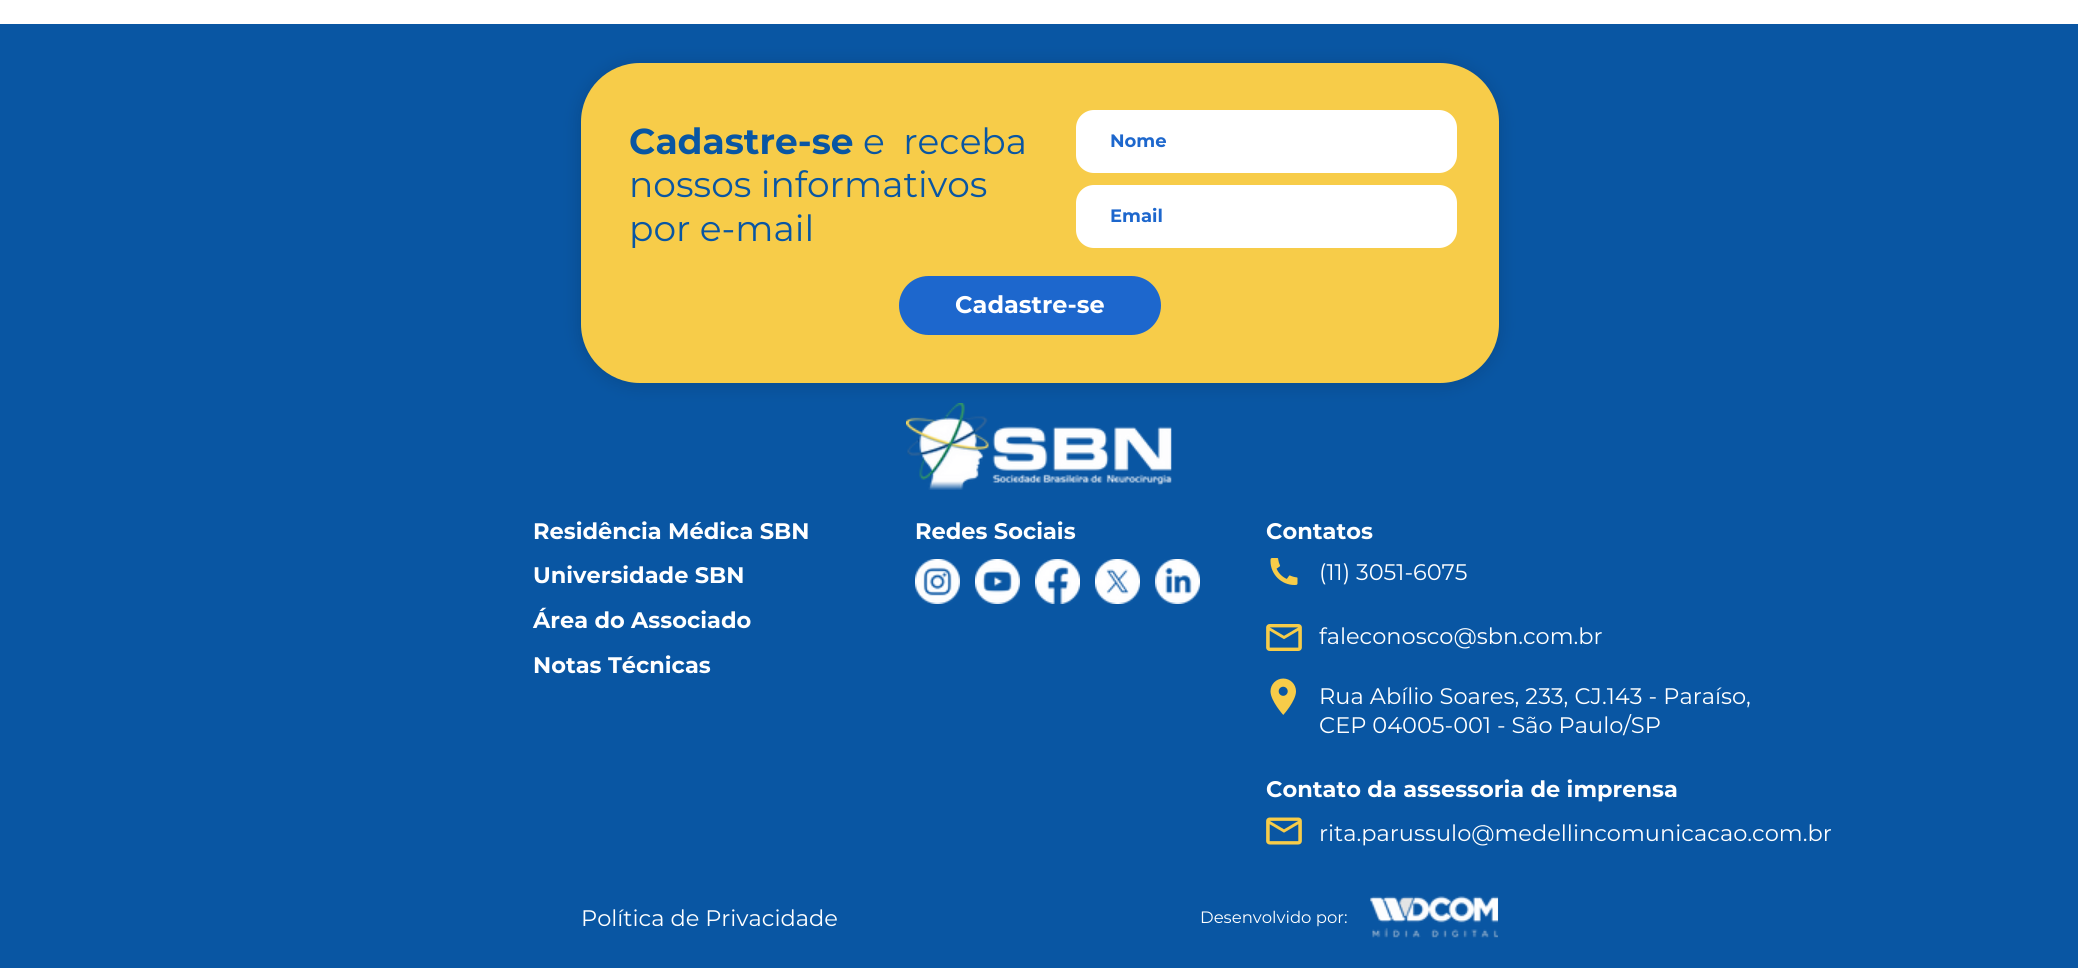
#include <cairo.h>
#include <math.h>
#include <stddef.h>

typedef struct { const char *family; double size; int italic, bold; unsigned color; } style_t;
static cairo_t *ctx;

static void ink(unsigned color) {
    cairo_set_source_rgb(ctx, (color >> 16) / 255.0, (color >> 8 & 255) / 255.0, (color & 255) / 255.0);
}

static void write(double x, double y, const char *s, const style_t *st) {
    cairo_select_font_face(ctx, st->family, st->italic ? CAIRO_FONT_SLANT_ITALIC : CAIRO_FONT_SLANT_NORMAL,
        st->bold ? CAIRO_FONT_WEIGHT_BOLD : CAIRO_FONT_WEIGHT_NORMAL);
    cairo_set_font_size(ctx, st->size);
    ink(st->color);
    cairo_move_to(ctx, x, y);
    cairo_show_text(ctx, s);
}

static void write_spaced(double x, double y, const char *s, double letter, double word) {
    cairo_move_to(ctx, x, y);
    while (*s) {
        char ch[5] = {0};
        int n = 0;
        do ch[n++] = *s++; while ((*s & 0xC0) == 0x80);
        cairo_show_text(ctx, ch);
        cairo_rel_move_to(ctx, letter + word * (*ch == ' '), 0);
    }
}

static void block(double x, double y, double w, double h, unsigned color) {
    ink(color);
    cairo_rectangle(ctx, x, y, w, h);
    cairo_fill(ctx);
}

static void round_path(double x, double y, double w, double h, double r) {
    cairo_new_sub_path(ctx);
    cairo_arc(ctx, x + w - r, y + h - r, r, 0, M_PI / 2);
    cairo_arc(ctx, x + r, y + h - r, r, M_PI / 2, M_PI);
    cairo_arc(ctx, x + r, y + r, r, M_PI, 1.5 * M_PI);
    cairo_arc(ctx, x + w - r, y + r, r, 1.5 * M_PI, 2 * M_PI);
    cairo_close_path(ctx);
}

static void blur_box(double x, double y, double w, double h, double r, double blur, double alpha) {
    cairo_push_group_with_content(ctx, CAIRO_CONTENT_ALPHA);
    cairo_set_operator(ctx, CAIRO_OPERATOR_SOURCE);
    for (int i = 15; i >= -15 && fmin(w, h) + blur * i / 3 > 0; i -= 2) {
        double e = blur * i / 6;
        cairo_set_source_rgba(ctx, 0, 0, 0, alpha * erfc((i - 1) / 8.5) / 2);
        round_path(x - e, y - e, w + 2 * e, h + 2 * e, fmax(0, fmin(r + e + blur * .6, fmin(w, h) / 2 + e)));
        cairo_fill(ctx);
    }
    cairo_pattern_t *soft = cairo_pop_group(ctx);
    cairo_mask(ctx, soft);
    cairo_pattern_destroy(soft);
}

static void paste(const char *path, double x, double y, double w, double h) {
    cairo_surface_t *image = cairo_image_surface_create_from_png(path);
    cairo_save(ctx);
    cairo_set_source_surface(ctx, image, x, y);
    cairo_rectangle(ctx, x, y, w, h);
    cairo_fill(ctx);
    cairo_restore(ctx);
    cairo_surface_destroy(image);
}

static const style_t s1 = {"Montserrat", 36, 0, 1, 0x0956a3};
static const style_t s2 = {"Montserrat", 36, 0, 0, 0x0956a3};
static const style_t s3 = {"Montserrat", 18, 0, 1, 0x1d67cd};
static const style_t s4 = {"Montserrat", 24, 0, 1, 0xffffff};
static const style_t s5 = {"Montserrat", 22.5, 0, 1, 0xffffff};
static const style_t s6 = {"Montserrat", 22.5, 0, 0, 0xffffff};
static const style_t s7 = {"Montserrat", 16.5, 0, 0, 0xffffff};

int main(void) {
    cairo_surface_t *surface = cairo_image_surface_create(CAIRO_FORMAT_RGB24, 2078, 968);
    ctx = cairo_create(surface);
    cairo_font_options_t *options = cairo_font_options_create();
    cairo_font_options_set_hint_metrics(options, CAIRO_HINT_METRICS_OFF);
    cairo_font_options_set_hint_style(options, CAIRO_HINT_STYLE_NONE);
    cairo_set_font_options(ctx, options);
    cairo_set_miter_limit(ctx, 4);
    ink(0xffffff);
    cairo_paint(ctx);
    block(0, 24, 2078, 944, 0x0956a3);
    paste("pic1.png", 906, 403, 266, 87);
    ink(0x000000);
    blur_box(576, 60, 927, 329, 63, 7, 0.1);
    ink(0xf7cc49);
    round_path(581, 63, 918, 320, 59);
    cairo_fill(ctx);
    write(629, 154, "Cadastre-se", &s1);
    cairo_select_font_face(ctx, "Montserrat", CAIRO_FONT_SLANT_NORMAL, CAIRO_FONT_WEIGHT_NORMAL);
    write_spaced(863, 154, "e receba", 0, 9);
    write(629, 197, "nossos informativos", &s2);
    write(629, 241, "por e-mail", &s2);
    ink(0xffffff);
    round_path(1076, 110, 381, 63, 18);
    cairo_fill(ctx);
    write(1110, 147, "Nome", &s3);
    ink(0xffffff);
    round_path(1076, 185, 381, 63, 18);
    cairo_fill(ctx);
    write(1110, 222, "Email", &s3);
    round_path(899, 276, 262, 59, 29.5);
    cairo_fill(ctx);
    write(955, 313, "Cadastre-se", &s4);
    write(533, 539, "Residência Médica SBN", &s5);
    write(915, 539, "Redes Sociais", &s5);
    write(1266, 539, "Contatos", &s5);
    write(533, 583, "Universidade SBN", &s5);
    paste("pic2.png", 915, 559, 45, 45);
    paste("pic3.png", 975, 559, 45, 45);
    paste("pic4.png", 1035, 559, 45, 45);
    paste("pic5.png", 1095, 559, 45, 45);
    paste("pic6.png", 1155, 559, 45, 45);
    paste("pic7.png", 1270, 558, 28, 27);
    write(1319, 580, "(11) 3051-6075", &s6);
    write(533, 628, "Área do Associado", &s5);
    paste("pic8.png", 1266, 624, 36, 27);
    write(1319, 644, "faleconosco@sbn.com.br", &s6);
    write(533, 673, "Notas Técnicas", &s5);
    paste("pic9.png", 1270, 678, 26, 37);
    cairo_select_font_face(ctx, "Montserrat", CAIRO_FONT_SLANT_NORMAL, CAIRO_FONT_WEIGHT_NORMAL);
    write_spaced(1319, 704, "Rua Abílio Soares, 233, CJ.143 - Paraíso,", 0, 0.25);
    write(1319, 733, "CEP 04005-001 - São Paulo/SP", &s6);
    write(1266, 797, "Contato da assessoria de imprensa", &s5);
    paste("pic10.png", 1266, 817, 36, 28);
    write(1319, 841, "rita.parussulo@medellincomunicacao.com.br", &s6);
    write(581, 926, "Política de Privacidade", &s6);
    write(1200, 923, "Desenvolvido por:", &s7);
    paste("pic11.png", 1370, 896, 129, 42);
    cairo_surface_write_to_png(surface, "screenshot.png");
    cairo_font_options_destroy(options);
    cairo_destroy(ctx);
    cairo_surface_destroy(surface);
    return 0;
}
